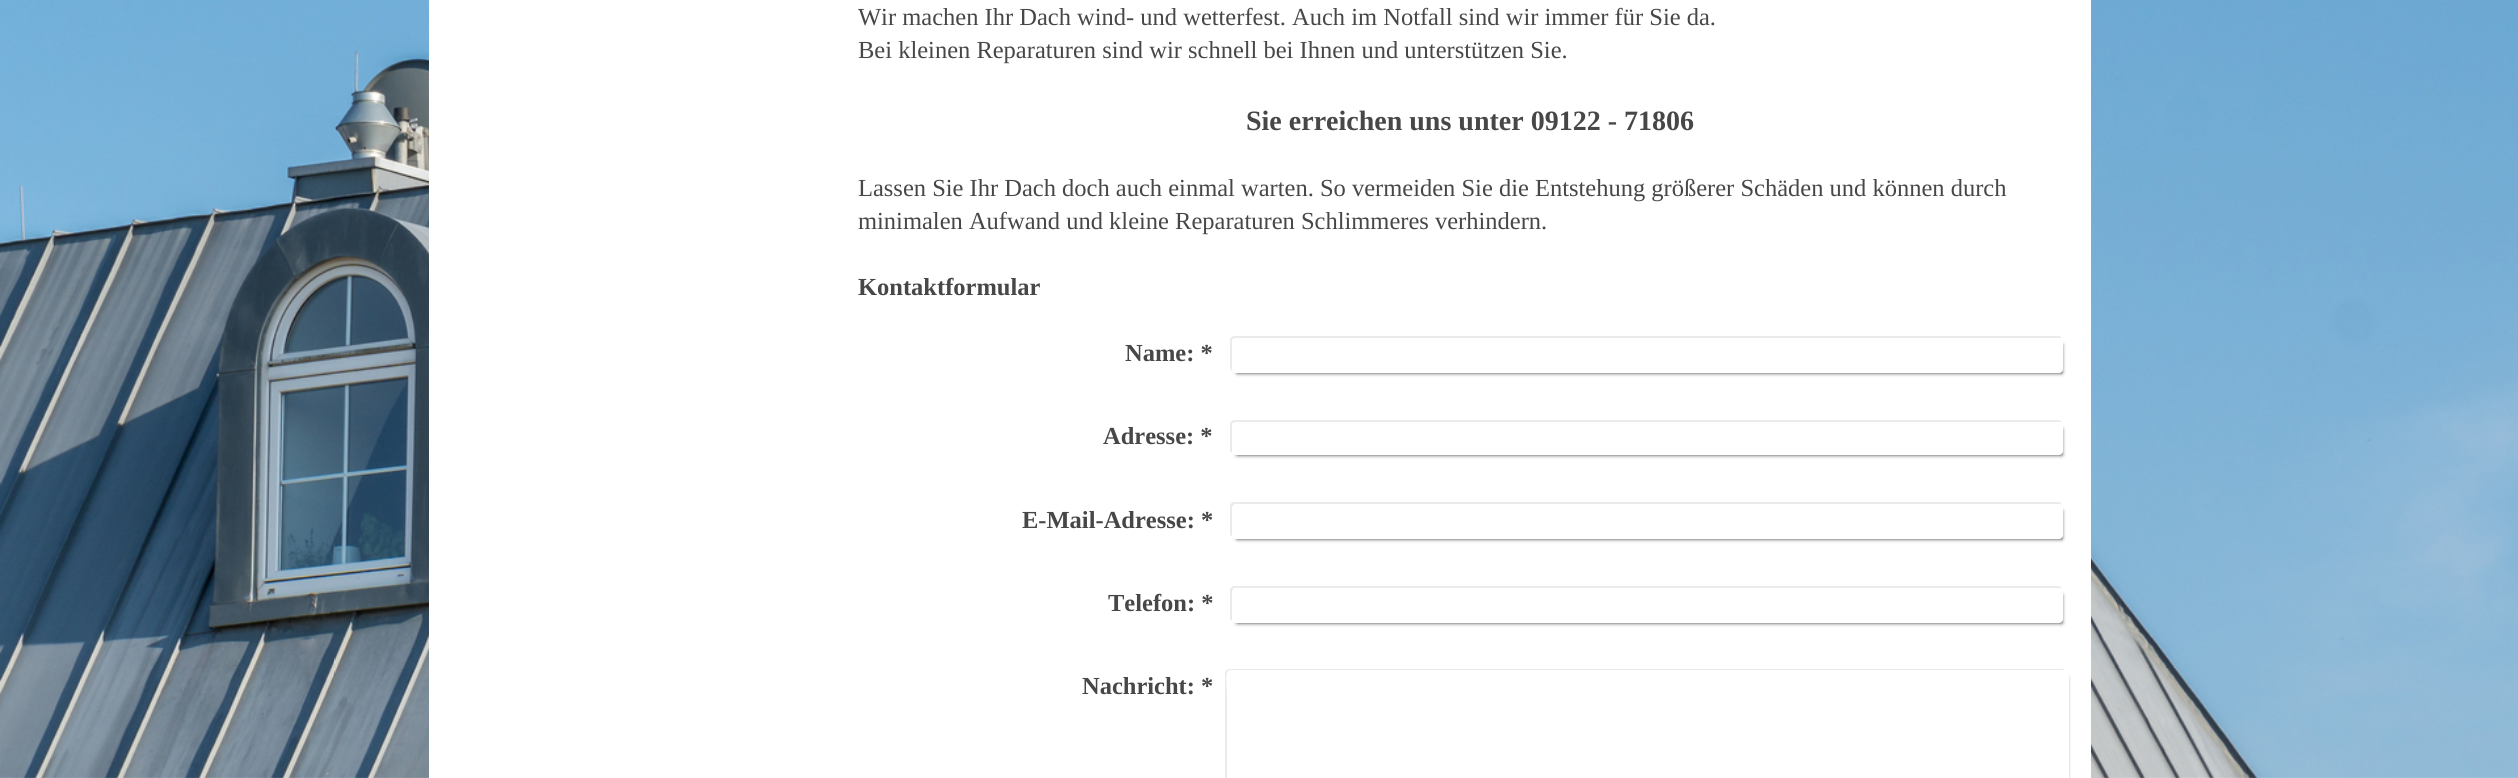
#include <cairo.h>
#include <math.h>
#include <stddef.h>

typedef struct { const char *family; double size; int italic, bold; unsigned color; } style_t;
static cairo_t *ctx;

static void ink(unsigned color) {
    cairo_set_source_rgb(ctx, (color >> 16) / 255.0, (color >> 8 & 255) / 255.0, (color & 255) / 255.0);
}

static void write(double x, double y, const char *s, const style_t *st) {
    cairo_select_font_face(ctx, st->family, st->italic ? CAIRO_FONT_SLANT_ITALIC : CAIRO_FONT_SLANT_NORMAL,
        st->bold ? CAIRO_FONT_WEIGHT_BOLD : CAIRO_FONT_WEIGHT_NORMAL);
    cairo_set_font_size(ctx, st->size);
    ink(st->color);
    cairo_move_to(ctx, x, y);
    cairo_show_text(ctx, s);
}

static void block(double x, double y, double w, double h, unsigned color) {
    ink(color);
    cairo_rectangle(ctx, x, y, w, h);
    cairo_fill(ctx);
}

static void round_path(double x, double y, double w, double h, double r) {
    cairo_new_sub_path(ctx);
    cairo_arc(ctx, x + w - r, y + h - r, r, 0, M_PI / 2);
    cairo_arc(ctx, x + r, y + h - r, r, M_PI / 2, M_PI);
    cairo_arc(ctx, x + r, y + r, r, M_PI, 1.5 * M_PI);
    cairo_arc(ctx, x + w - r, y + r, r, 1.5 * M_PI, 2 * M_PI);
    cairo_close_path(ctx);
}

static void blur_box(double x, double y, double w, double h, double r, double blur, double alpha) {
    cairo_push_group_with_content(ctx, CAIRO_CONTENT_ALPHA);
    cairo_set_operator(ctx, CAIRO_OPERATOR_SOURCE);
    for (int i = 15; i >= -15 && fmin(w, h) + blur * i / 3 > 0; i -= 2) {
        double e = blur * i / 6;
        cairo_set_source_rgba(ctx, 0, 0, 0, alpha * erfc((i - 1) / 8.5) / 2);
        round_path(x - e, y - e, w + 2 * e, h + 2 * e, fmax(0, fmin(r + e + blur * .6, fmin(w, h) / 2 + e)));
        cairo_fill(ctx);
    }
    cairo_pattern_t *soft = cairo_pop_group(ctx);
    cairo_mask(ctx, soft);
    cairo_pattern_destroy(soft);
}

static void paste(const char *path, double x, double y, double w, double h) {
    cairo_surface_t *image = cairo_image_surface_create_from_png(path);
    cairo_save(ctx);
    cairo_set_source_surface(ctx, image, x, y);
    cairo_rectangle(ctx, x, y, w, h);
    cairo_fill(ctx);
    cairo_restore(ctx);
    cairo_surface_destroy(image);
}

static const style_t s1 = {"Liberation Serif", 24.5, 0, 0, 0x474747};
static const style_t s2 = {"Liberation Serif", 28, 0, 1, 0x474747};
static const style_t s3 = {"Liberation Serif", 24.5, 0, 1, 0x474747};

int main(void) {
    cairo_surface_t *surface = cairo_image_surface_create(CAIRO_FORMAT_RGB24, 2518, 778);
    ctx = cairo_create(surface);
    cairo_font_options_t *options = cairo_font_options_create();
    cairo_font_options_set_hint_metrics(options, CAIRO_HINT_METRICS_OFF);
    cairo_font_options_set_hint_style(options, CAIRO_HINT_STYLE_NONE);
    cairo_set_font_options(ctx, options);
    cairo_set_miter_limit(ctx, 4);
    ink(0xffffff);
    cairo_paint(ctx);
    paste("pic1.png", 0, 0, 2518, 778);
    block(429, 0, 1662, 778, 0xffffff);
    write(858, 25, "Wir machen Ihr Dach wind- und wetterfest. Auch im Notfall sind wir immer für Sie da.", &s1);
    write(858, 58, "Bei kleinen Reparaturen sind wir schnell bei Ihnen und unterstützen Sie.", &s1);
    write(1246, 130, "Sie erreichen uns unter 09122 - 71806", &s2);
    write(858, 196, "Lassen Sie Ihr Dach doch auch einmal warten. So vermeiden Sie die Entstehung größerer Schäden und können durch", &s1);
    write(858, 229, "minimalen Aufwand und kleine Reparaturen Schlimmeres verhindern.", &s1);
    write(858, 295, "Kontaktformular", &s3);
    ink(0xebebeb);
    cairo_new_path(ctx);
    cairo_move_to(ctx, 1234, 336);
    cairo_curve_to(ctx, 1232, 336, 1230, 338, 1230, 340);
    cairo_line_to(ctx, 1230, 367);
    cairo_curve_to(ctx, 1230, 369, 1231, 370, 1232, 371);
    cairo_line_to(ctx, 1232, 341);
    cairo_curve_to(ctx, 1232, 339, 1234, 338, 1236, 338);
    cairo_line_to(ctx, 2060, 338);
    cairo_line_to(ctx, 2062, 338);
    cairo_curve_to(ctx, 2061, 337, 2060, 336, 2058, 336);
    cairo_close_path(ctx);
    cairo_fill(ctx);
    ink(0x000000);
    blur_box(1237, 345, 825, 28, 0, 2, 0.8);
    write(1125, 361, "Name: *", &s3);
    ink(0xffffff);
    round_path(1232, 338, 831, 35, 4);
    cairo_fill(ctx);
    ink(0xebebeb);
    cairo_new_path(ctx);
    cairo_move_to(ctx, 1234, 420);
    cairo_curve_to(ctx, 1232, 420, 1230, 422, 1230, 424);
    cairo_line_to(ctx, 1230, 449);
    cairo_curve_to(ctx, 1230, 451, 1231, 452, 1232, 453);
    cairo_line_to(ctx, 1232, 425);
    cairo_curve_to(ctx, 1232, 423, 1234, 422, 1236, 422);
    cairo_line_to(ctx, 2060, 422);
    cairo_line_to(ctx, 2062, 422);
    cairo_curve_to(ctx, 2061, 421, 2060, 420, 2058, 420);
    cairo_close_path(ctx);
    cairo_fill(ctx);
    ink(0x000000);
    blur_box(1237, 429, 825, 26, 0, 2, 0.8);
    write(1103, 444, "Adresse: *", &s3);
    ink(0xffffff);
    round_path(1232, 422, 831, 33, 4);
    cairo_fill(ctx);
    ink(0xebebeb);
    cairo_new_path(ctx);
    cairo_move_to(ctx, 1234, 502);
    cairo_curve_to(ctx, 1232, 502, 1230, 504, 1230, 506);
    cairo_line_to(ctx, 1230, 533);
    cairo_curve_to(ctx, 1230, 535, 1231, 536, 1232, 537);
    cairo_line_to(ctx, 1232, 508);
    cairo_curve_to(ctx, 1232, 506, 1234, 504, 1236, 504);
    cairo_line_to(ctx, 2060, 504);
    cairo_line_to(ctx, 2062, 505);
    cairo_curve_to(ctx, 2061, 503, 2060, 502, 2058, 502);
    cairo_close_path(ctx);
    cairo_fill(ctx);
    ink(0x000000);
    blur_box(1237, 511, 825, 28, 0, 2, 0.8);
    write(1022, 528, "E-Mail-Adresse: *", &s3);
    ink(0xffffff);
    round_path(1232, 504, 831, 35, 4);
    cairo_fill(ctx);
    ink(0xebebeb);
    cairo_new_path(ctx);
    cairo_move_to(ctx, 1234, 586);
    cairo_curve_to(ctx, 1232, 586, 1230, 588, 1230, 590);
    cairo_line_to(ctx, 1230, 617);
    cairo_curve_to(ctx, 1230, 619, 1231, 620, 1232, 621);
    cairo_line_to(ctx, 1232, 592);
    cairo_curve_to(ctx, 1232, 590, 1234, 588, 1236, 588);
    cairo_line_to(ctx, 2060, 588);
    cairo_line_to(ctx, 2062, 589);
    cairo_curve_to(ctx, 2061, 587, 2060, 586, 2058, 586);
    cairo_close_path(ctx);
    cairo_fill(ctx);
    ink(0x000000);
    blur_box(1237, 595, 825, 28, 0, 2, 0.8);
    write(1108, 611, "Telefon: *", &s3);
    ink(0xffffff);
    round_path(1232, 588, 831, 35, 4);
    cairo_fill(ctx);
    ink(0xebebeb);
    cairo_new_path(ctx);
    cairo_move_to(ctx, 1229, 669);
    cairo_curve_to(ctx, 1227, 669, 1225, 671, 1225, 673);
    cairo_line_to(ctx, 1225, 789);
    cairo_curve_to(ctx, 1225, 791, 1226, 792, 1227, 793);
    cairo_line_to(ctx, 1227, 693);
    cairo_curve_to(ctx, 1227, 686, 1224, 670, 1230, 670);
    cairo_line_to(ctx, 2066, 670);
    cairo_curve_to(ctx, 2065, 670, 2064, 669, 2063, 669);
    cairo_close_path(ctx);
    cairo_fill(ctx);
    ink(0x000000);
    blur_box(1232, 677, 835, 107, 0, 2, 0.8);
    write(1082, 694, "Nachricht: *", &s3);
    ink(0xffffff);
    round_path(1227, 670, 842, 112, 4);
    cairo_fill(ctx);
    cairo_surface_write_to_png(surface, "screenshot.png");
    cairo_font_options_destroy(options);
    cairo_destroy(ctx);
    cairo_surface_destroy(surface);
    return 0;
}
